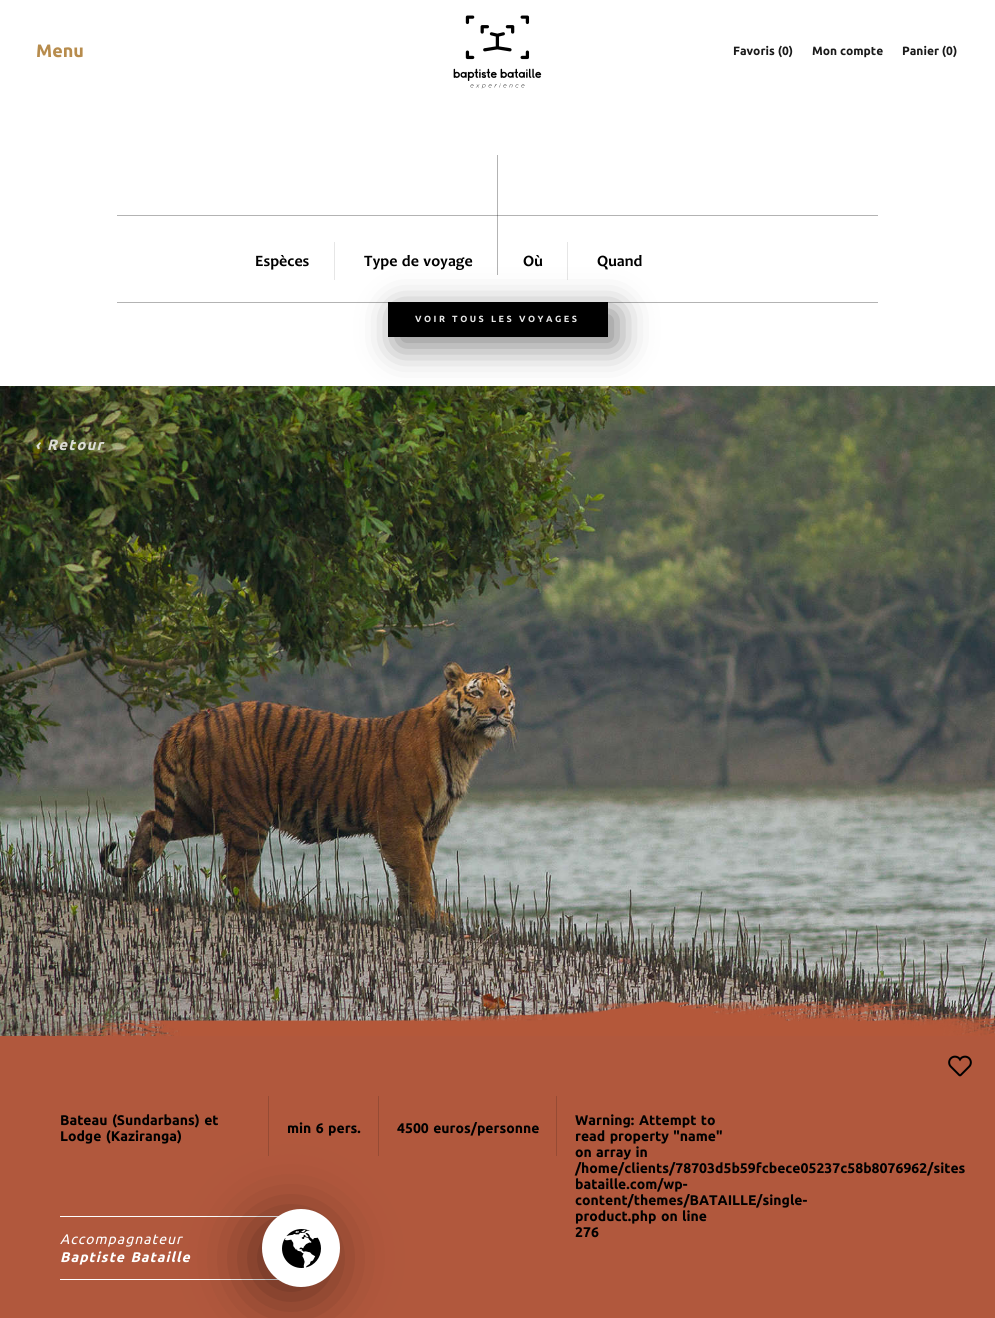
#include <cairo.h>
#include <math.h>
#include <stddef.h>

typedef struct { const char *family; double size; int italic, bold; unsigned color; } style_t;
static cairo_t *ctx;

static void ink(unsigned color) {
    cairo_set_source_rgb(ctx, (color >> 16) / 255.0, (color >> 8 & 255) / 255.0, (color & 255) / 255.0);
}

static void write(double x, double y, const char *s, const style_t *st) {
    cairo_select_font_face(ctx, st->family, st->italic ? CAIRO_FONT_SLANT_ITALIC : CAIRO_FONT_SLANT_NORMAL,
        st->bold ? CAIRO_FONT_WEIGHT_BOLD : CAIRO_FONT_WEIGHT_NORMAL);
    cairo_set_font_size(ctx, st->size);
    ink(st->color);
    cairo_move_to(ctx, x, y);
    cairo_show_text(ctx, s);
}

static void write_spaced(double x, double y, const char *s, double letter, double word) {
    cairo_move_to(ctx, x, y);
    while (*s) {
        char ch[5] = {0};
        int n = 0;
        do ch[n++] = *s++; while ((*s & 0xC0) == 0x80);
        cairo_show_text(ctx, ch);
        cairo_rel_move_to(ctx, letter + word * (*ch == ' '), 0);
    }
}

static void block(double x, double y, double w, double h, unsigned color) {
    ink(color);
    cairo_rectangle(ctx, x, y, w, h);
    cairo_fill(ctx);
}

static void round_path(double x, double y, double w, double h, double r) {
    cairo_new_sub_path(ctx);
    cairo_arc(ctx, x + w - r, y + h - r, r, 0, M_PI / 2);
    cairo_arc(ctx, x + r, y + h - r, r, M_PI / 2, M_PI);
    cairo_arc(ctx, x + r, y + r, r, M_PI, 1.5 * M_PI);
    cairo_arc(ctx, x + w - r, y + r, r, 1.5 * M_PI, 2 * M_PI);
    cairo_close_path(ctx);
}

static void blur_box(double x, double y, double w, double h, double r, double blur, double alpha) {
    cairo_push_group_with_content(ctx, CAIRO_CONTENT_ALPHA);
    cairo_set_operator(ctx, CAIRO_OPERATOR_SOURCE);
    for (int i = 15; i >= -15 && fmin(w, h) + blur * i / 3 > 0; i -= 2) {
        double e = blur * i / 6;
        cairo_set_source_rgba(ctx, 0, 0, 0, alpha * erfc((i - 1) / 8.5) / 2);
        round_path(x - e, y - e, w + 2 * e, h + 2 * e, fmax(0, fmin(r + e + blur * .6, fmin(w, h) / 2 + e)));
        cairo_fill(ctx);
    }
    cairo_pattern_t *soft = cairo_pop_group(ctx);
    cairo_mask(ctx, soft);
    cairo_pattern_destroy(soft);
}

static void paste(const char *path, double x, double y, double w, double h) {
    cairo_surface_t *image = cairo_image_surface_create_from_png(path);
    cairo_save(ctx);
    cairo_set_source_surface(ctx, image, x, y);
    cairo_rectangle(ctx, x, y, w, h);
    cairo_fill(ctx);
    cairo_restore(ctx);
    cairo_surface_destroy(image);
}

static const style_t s1 = {"Ubuntu", 18, 0, 1, 0xb78c4d};
static const style_t s2 = {"Ubuntu", 12, 0, 1, 0x1a1a1a};
static const style_t s3 = {"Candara", 16, 0, 1, 0x000000};
static const style_t s4 = {"Ubuntu", 14, 0, 1, 0x000000};

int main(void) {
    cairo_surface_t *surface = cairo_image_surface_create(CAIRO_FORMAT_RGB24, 995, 1318);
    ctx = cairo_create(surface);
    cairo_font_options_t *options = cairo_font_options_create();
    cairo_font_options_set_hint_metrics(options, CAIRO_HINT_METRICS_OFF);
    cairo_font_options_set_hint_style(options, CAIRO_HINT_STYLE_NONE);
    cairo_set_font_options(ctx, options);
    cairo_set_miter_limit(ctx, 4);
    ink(0xffffff);
    cairo_paint(ctx);
    write(36, 57, "Menu", &s1);
    paste("pic1.png", 453, 15, 89, 74);
    write(733, 55, "Favoris (0)", &s2);
    write(812, 55, "Mon compte", &s2);
    write(902, 55, "Panier (0)", &s2);
    block(497, 155, 1, 120, 0xb3b3b3);
    block(117, 215, 761, 1, 0xb3b3b3);
    block(497, 215, 1, 1, 0x7d7d7d);
    block(334, 242, 1, 38, 0xe6e6e6);
    write(255, 266, "Espèces", &s3);
    block(0, 1035, 995, 283, 0xb1583d);
    paste("pic2.png", 0, 386, 995, 650);
    ink(0x000000);
    blur_box(397, 311, 220, 35, 0, 17.5, 0.5);
    ink(0x000000);
    write_spaced(364, 266, "Type de voyage", 0, 1);
    cairo_set_source_rgba(ctx, 0, 0, 0, 0.1);
    cairo_rectangle(ctx, 567, 242, 1, 38);
    cairo_fill(ctx);
    write(523, 266, "Où", &s3);
    write(597, 266, "Quand", &s3);
    block(388, 302, 220, 35, 0x000000);
    cairo_set_source_rgba(ctx, 0, 0, 0, 0.3);
    cairo_rectangle(ctx, 117, 302, 761, 1);
    cairo_fill(ctx);
    cairo_select_font_face(ctx, "Ubuntu", CAIRO_FONT_SLANT_NORMAL, CAIRO_FONT_WEIGHT_BOLD);
    cairo_set_font_size(ctx, 9);
    ink(0xe6e6e6);
    write_spaced(415, 322, "VOIR TOUS LES VOYAGES", 2.5, 0);
    paste("pic3.png", 8, 993, 987, 43);
    cairo_select_font_face(ctx, "Ubuntu", CAIRO_FONT_SLANT_ITALIC, CAIRO_FONT_WEIGHT_BOLD);
    cairo_set_font_size(ctx, 15);
    ink(0xdcddd5);
    write_spaced(35, 450, "‹", 1.25, 0);
    write_spaced(47, 450, "Retour", 1.25, 0);
    paste("pic4.png", 948, 1055, 24, 22);
    cairo_select_font_face(ctx, "Ubuntu", CAIRO_FONT_SLANT_NORMAL, CAIRO_FONT_WEIGHT_BOLD);
    cairo_set_font_size(ctx, 14);
    ink(0x000000);
    write_spaced(60, 1125, "Bateau (Sundarbans) et", 0, 1);
    write_spaced(60, 1141, "Lodge (Kaziranga)", 0, 1);
    block(268, 1096, 1, 60, 0x964b34);
    ink(0x000000);
    write_spaced(287, 1133, "min 6 pers.", 0, 1);
    block(378, 1096, 1, 60, 0x964b34);
    ink(0x000000);
    write_spaced(397, 1133, "4500 euros/personne", 0, 1);
    block(556, 1096, 1, 60, 0x964b34);
    write(575, 1125, "Warning:", &s4);
    write_spaced(639, 1125, "Attempt to", 0, 1);
    write_spaced(575, 1141, "read property \"name\"", 0, 1);
    write_spaced(575, 1157, "on array in", 0, 1);
    write(575, 1173, "/home/clients/78703d5b59fcbece05237c58b8076962/sites", &s4);
    write(575, 1189, "bataille.com/wp-", &s4);
    write(575, 1205, "content/themes/BATAILLE/single-", &s4);
    write(575, 1221, "product.php", &s4);
    write_spaced(661, 1221, "on line", 0, 1);
    write(575, 1237, "276", &s4);
    block(60, 1216, 219, 1, 0xffffff);
    block(60, 1279, 219, 1, 0xffffff);
    cairo_select_font_face(ctx, "Ubuntu", CAIRO_FONT_SLANT_ITALIC, CAIRO_FONT_WEIGHT_NORMAL);
    write_spaced(60, 1244, "Accompagnateur", 1, 0);
    ink(0x000000);
    blur_box(252, 1219, 78, 78, 39, 30, 0.45);
    ink(0xffffff);
    cairo_arc(ctx, 301, 1248, 39, 0, 2 * M_PI);
    cairo_fill(ctx);
    paste("pic5.png", 282, 1229, 39, 39);
    cairo_select_font_face(ctx, "Ubuntu", CAIRO_FONT_SLANT_ITALIC, CAIRO_FONT_WEIGHT_BOLD);
    write_spaced(60, 1262, "Baptiste Bataille", 1, 1);
    cairo_surface_write_to_png(surface, "screenshot.png");
    cairo_font_options_destroy(options);
    cairo_destroy(ctx);
    cairo_surface_destroy(surface);
    return 0;
}
